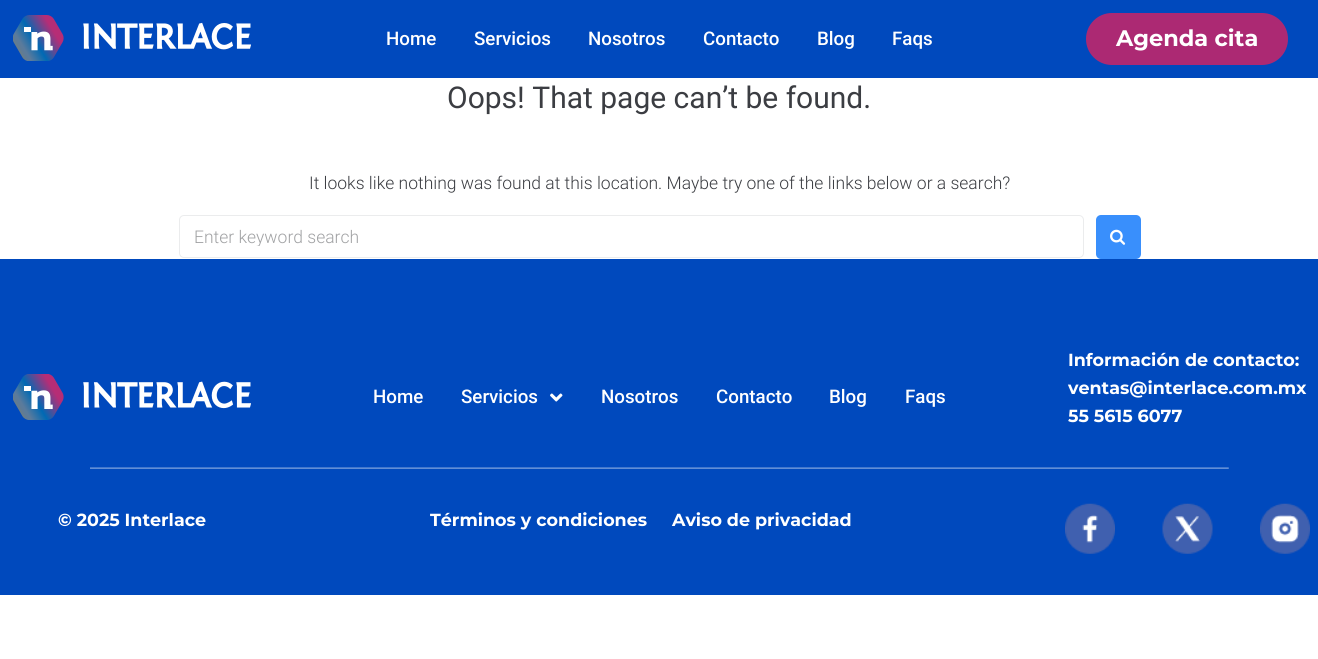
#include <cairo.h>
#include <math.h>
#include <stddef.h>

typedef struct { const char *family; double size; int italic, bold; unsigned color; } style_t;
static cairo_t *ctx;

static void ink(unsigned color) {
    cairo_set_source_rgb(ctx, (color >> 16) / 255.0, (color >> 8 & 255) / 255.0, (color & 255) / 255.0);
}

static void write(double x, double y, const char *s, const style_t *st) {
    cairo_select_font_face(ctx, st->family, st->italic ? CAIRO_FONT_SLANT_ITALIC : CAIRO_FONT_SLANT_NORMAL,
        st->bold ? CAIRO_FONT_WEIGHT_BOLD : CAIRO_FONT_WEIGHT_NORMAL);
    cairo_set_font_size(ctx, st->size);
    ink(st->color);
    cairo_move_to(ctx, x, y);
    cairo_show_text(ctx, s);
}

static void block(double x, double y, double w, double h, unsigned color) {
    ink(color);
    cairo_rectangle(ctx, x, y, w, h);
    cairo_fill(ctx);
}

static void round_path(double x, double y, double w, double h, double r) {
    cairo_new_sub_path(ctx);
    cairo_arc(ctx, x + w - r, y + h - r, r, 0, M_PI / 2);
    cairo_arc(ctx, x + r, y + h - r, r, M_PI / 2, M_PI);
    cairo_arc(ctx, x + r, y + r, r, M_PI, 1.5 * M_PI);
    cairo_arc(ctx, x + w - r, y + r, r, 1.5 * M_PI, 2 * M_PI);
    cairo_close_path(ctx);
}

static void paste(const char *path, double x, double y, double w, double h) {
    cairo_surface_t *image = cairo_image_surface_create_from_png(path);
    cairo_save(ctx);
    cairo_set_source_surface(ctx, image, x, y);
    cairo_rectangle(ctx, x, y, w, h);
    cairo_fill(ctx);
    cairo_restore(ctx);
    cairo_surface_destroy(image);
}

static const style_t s1 = {"Roboto Medium", 18.75, 0, 0, 0xffffff};
static const style_t s2 = {"Montserrat Thin", 22.5, 0, 0, 0xffffff};
static const style_t s3 = {"Roboto", 30, 0, 0, 0x3b3d42};
static const style_t s4 = {"Roboto Light", 17.5, 0, 0, 0x3b3d42};
static const style_t s5 = {"Roboto Light", 17.5, 0, 0, 0xa1a2a4};
static const style_t s6 = {"Montserrat Thin", 17.5, 0, 0, 0xffffff};

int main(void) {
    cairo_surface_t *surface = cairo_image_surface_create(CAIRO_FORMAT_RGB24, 1318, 659);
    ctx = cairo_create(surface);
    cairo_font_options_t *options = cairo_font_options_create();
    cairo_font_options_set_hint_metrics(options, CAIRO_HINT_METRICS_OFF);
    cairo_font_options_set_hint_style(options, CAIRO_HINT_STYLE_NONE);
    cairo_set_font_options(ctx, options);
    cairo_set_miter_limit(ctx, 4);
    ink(0xffffff);
    cairo_paint(ctx);
    block(0, 0, 1318, 78, 0x0049bd);
    paste("pic1.png", 13, 15, 238, 46);
    write(386, 45, "Home", &s1);
    write(474, 45, "Servicios", &s1);
    write(588, 45, "Nosotros", &s1);
    write(703, 45, "Contacto", &s1);
    write(817, 45, "Blog", &s1);
    write(892, 45, "Faqs", &s1);
    ink(0xac2973);
    round_path(1086, 13, 202, 52, 26);
    cairo_fill(ctx);
    write(1116, 46, "Agenda cita", &s2);
    write(447, 108, "Oops! That page can’t be found.", &s3);
    write(309, 189, "It looks like nothing was found at this location. Maybe try one of the links below or a search?", &s4);
    round_path(179.5, 215.5, 904, 42, 4.5);
    ink(0xebeced);
    cairo_set_line_width(ctx, 1);
    cairo_stroke(ctx);
    cairo_save(ctx);
    cairo_rectangle(ctx, 195, 226, 868, 20);
    cairo_clip(ctx);
    write(194, 243, "Enter keyword search", &s5);
    cairo_restore(ctx);
    ink(0x398ffc);
    round_path(1096, 215, 45, 44, 5);
    cairo_fill(ctx);
    paste("pic2.png", 1110, 229, 16, 16);
    block(0, 259, 1318, 336, 0x0049bd);
    paste("pic3.png", 13, 374, 238, 46);
    write(373, 403, "Home", &s1);
    write(461, 403, "Servicios", &s1);
    paste("pic4.png", 550, 393, 13, 9);
    write(601, 403, "Nosotros", &s1);
    write(716, 403, "Contacto", &s1);
    write(829, 403, "Blog", &s1);
    write(905, 403, "Faqs", &s1);
    write(1068, 366, "Información de contacto:", &s6);
    write(1068, 394, "ventas@interlace.com.mx", &s6);
    write(1068, 422, "55 5615 6077", &s6);
    paste("pic5.png", 90, 467, 1139, 2);
    write(58, 526, "© 2025 Interlace", &s6);
    write(430, 526, "Términos y condiciones", &s6);
    write(672, 526, "Aviso de privacidad", &s6);
    paste("pic6.png", 1065, 503, 50, 51);
    paste("pic7.png", 1162, 503, 51, 51);
    paste("pic8.png", 1260, 503, 50, 51);
    cairo_surface_write_to_png(surface, "screenshot.png");
    cairo_font_options_destroy(options);
    cairo_destroy(ctx);
    cairo_surface_destroy(surface);
    return 0;
}
